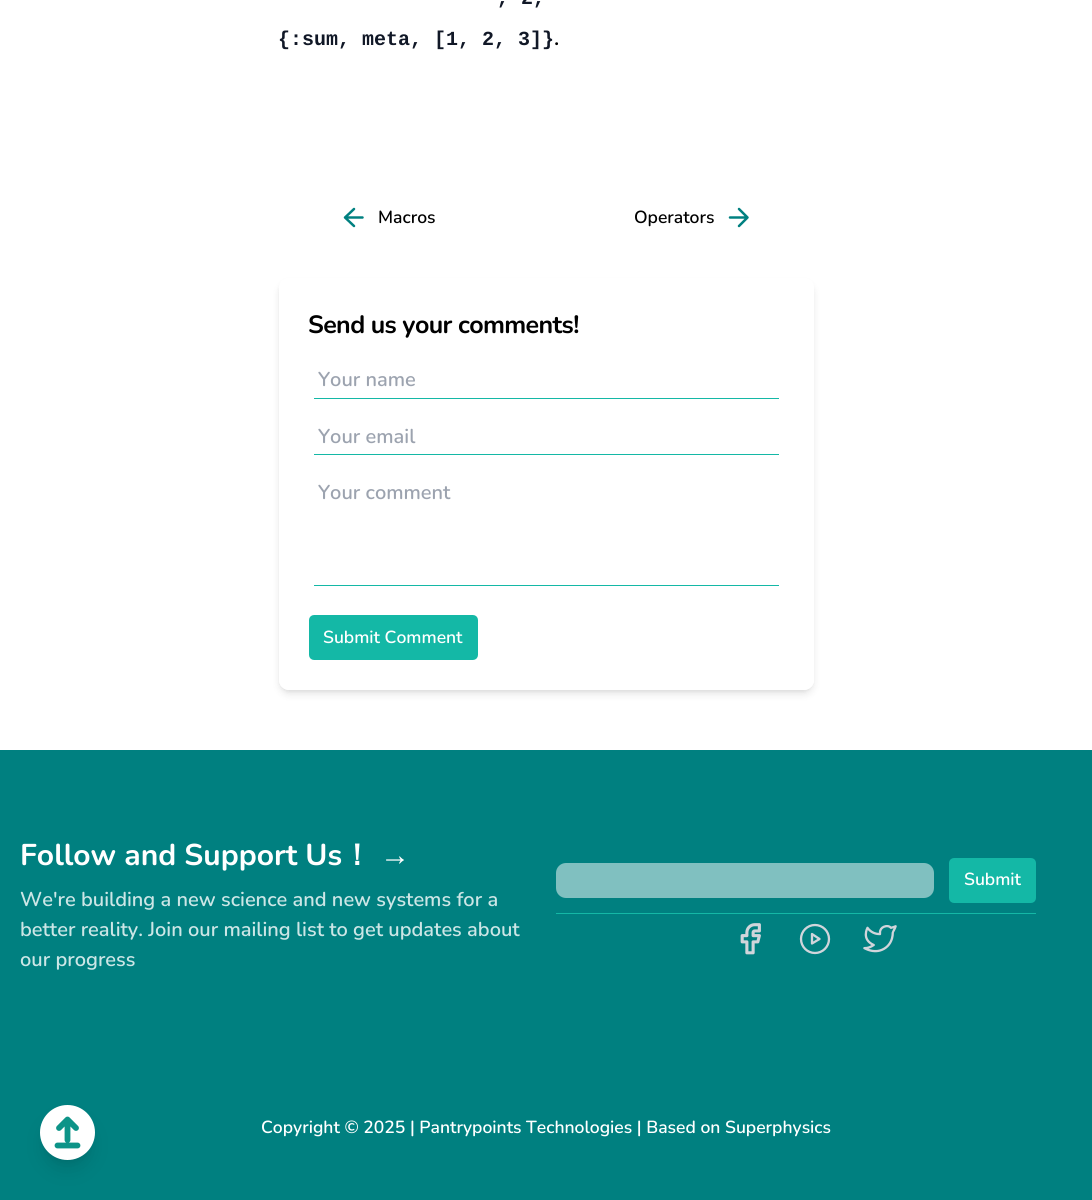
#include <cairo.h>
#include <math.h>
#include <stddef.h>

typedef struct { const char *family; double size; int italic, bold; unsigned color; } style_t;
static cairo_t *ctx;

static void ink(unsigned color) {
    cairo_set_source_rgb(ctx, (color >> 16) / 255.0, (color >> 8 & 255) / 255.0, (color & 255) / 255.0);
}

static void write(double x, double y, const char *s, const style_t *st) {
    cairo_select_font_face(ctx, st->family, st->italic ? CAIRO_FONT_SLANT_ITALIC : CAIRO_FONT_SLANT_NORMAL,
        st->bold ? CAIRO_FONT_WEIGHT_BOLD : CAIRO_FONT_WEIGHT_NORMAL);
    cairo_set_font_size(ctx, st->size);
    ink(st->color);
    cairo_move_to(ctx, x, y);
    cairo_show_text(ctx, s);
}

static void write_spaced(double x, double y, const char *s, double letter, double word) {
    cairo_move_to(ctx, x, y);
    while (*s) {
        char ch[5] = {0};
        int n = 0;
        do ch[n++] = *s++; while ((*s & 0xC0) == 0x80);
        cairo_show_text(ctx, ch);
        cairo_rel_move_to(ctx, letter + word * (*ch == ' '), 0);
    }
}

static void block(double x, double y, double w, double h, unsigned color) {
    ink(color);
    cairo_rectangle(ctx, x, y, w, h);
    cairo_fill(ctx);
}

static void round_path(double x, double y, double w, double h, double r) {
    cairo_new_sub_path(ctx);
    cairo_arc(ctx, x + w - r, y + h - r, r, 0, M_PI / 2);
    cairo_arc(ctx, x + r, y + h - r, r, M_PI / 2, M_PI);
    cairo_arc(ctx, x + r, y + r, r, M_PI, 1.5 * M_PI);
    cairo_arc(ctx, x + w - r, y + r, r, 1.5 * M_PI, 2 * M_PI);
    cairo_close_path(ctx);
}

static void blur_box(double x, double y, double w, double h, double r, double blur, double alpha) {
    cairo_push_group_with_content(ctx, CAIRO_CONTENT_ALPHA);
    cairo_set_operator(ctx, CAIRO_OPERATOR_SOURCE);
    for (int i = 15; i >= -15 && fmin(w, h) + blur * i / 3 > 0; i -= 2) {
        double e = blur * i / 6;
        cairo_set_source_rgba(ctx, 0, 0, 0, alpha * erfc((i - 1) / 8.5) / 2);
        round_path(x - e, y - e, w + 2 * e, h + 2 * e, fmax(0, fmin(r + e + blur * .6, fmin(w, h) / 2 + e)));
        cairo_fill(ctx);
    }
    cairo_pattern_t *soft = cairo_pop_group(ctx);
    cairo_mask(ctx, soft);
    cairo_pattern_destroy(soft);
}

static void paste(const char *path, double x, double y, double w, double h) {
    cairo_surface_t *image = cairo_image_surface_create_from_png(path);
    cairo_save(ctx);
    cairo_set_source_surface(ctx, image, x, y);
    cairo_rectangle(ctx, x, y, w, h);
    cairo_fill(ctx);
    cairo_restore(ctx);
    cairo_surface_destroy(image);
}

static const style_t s1 = {"Liberation Mono", 20, 0, 1, 0x111827};
static const style_t s2 = {"Nunito SemiBold", 22, 0, 0, 0x000000};
static const style_t s3 = {"Nunito SemiBold", 17.5, 0, 0, 0x000000};
static const style_t s4 = {"Nunito SemiBold", 20, 0, 0, 0x9ca3af};
static const style_t s5 = {"Nunito SemiBold", 17.5, 0, 0, 0xffffff};
static const style_t s6 = {"Nunito", 30, 0, 1, 0xffffff};
static const style_t s7 = {"WenQuanYi Zen Hei", 30, 0, 1, 0xffffff};
static const style_t s8 = {"Liberation Serif", 30, 0, 1, 0xffffff};
static const style_t s9 = {"Nunito SemiBold", 20, 0, 0, 0xcce6e6};

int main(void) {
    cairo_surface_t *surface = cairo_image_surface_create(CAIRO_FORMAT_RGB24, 1092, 1200);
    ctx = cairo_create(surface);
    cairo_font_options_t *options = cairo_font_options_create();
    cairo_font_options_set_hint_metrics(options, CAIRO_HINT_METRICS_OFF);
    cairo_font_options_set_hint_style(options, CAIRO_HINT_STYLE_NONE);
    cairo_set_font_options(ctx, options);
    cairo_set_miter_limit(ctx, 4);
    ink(0xffffff);
    cairo_paint(ctx);
    write(497, 4, ", 2,", &s1);
    write(278, 45, "{:sum, meta, [1, 2, 3]}", &s1);
    write(554, 45, ".", &s2);
    cairo_new_path(ctx);
    cairo_move_to(ctx, 354, 226);
    cairo_line_to(ctx, 345, 217.5);
    cairo_line_to(ctx, 354, 209);
    cairo_move_to(ctx, 362.5, 217.5);
    cairo_line_to(ctx, 345, 217.5);
    ink(0x008080);
    cairo_set_line_width(ctx, 2.5);
    cairo_set_line_cap(ctx, CAIRO_LINE_CAP_ROUND);
    cairo_set_line_join(ctx, CAIRO_LINE_JOIN_ROUND);
    cairo_stroke(ctx);
    write(378, 223, "Macros", &s3);
    write(634, 223, "Operators", &s3);
    cairo_new_path(ctx);
    cairo_move_to(ctx, 730, 217.5);
    cairo_line_to(ctx, 747.5, 217.5);
    cairo_move_to(ctx, 739, 209);
    cairo_line_to(ctx, 747.5, 217.5);
    cairo_line_to(ctx, 739, 226);
    ink(0x008080);
    cairo_stroke(ctx);
    cairo_save(ctx);
    cairo_set_fill_rule(ctx, CAIRO_FILL_RULE_EVEN_ODD);
    cairo_new_path(ctx);
    cairo_move_to(ctx, 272, 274);
    cairo_line_to(ctx, 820, 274);
    cairo_line_to(ctx, 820, 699);
    cairo_line_to(ctx, 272, 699);
    cairo_close_path(ctx);
    cairo_move_to(ctx, 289, 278);
    cairo_line_to(ctx, 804, 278);
    cairo_curve_to(ctx, 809.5, 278, 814, 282.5, 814, 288);
    cairo_line_to(ctx, 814, 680);
    cairo_curve_to(ctx, 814, 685.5, 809.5, 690, 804, 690);
    cairo_line_to(ctx, 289, 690);
    cairo_curve_to(ctx, 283.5, 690, 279, 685.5, 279, 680);
    cairo_line_to(ctx, 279, 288);
    cairo_curve_to(ctx, 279, 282.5, 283.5, 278, 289, 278);
    cairo_close_path(ctx);
    cairo_clip(ctx);
    ink(0x000000);
    blur_box(281, 283, 530, 407, 8, 2.5, 0.1);
    cairo_restore(ctx);
    cairo_save(ctx);
    cairo_set_fill_rule(ctx, CAIRO_FILL_RULE_EVEN_ODD);
    cairo_new_path(ctx);
    cairo_move_to(ctx, 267, 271);
    cairo_line_to(ctx, 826, 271);
    cairo_line_to(ctx, 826, 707);
    cairo_line_to(ctx, 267, 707);
    cairo_close_path(ctx);
    cairo_move_to(ctx, 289, 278);
    cairo_line_to(ctx, 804, 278);
    cairo_curve_to(ctx, 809.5, 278, 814, 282.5, 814, 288);
    cairo_line_to(ctx, 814, 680);
    cairo_curve_to(ctx, 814, 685.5, 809.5, 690, 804, 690);
    cairo_line_to(ctx, 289, 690);
    cairo_curve_to(ctx, 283.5, 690, 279, 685.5, 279, 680);
    cairo_line_to(ctx, 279, 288);
    cairo_curve_to(ctx, 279, 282.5, 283.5, 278, 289, 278);
    cairo_close_path(ctx);
    cairo_clip(ctx);
    ink(0x000000);
    blur_box(280, 284, 533, 410, 9, 4, 0.1);
    cairo_restore(ctx);
    cairo_set_source_rgba(ctx, 1, 1, 1, 0.5);
    round_path(279, 278, 535, 412, 10);
    cairo_fill(ctx);
    cairo_select_font_face(ctx, "Nunito", CAIRO_FONT_SLANT_NORMAL, CAIRO_FONT_WEIGHT_BOLD);
    cairo_set_font_size(ctx, 25);
    ink(0x000000);
    write_spaced(308, 333, "Send us your comments!", -0.6, 0);
    block(314, 398, 465, 1, 0x14b8a6);
    write(318, 386, "Your name", &s4);
    block(314, 454, 465, 1, 0x14b8a6);
    write(318, 443, "Your email", &s4);
    block(314, 585, 465, 1, 0x14b8a6);
    write(318, 499, "Your comment", &s4);
    ink(0x14b8a6);
    round_path(311.5, 617.5, 164, 40, 2.5);
    cairo_fill_preserve(ctx);
    cairo_set_line_width(ctx, 5);
    cairo_set_line_cap(ctx, CAIRO_LINE_CAP_BUTT);
    cairo_set_line_join(ctx, CAIRO_LINE_JOIN_MITER);
    cairo_stroke(ctx);
    write(323, 643, "Submit Comment", &s5);
    block(0, 750, 1092, 450, 0x008080);
    write(20, 865, "Follow and Support Us", &s6);
    write(342, 865, "！", &s7);
    write(380, 865, "→", &s8);
    write(20, 906, "We're building a new science and new systems for a", &s9);
    write(20, 936, "better reality. Join our mailing list to get updates about", &s9);
    write(20, 966, "our progress", &s9);
    block(556, 913, 480, 1, 0x14b8a6);
    ink(0x80c0c0);
    round_path(556, 863, 378, 35, 10);
    cairo_fill(ctx);
    ink(0x14b8a6);
    round_path(951.5, 860.5, 82, 40, 2.5);
    cairo_fill_preserve(ctx);
    cairo_stroke(ctx);
    write(964, 885, "Submit", &s5);
    paste("pic1.png", 740, 923, 21, 32);
    cairo_arc(ctx, 815, 939, 14, 0, 2 * M_PI);
    ink(0xd1d5db);
    cairo_set_line_width(ctx, 2.3);
    cairo_stroke(ctx);
    cairo_new_path(ctx);
    cairo_move_to(ctx, 812, 934);
    cairo_line_to(ctx, 819.5, 939);
    cairo_line_to(ctx, 812, 943.5);
    cairo_close_path(ctx);
    cairo_set_line_cap(ctx, CAIRO_LINE_CAP_ROUND);
    cairo_set_line_join(ctx, CAIRO_LINE_JOIN_ROUND);
    cairo_stroke(ctx);
    paste("pic2.png", 863, 925, 34, 28);
    write(261, 1133, "Copyright © 2025 | Pantrypoints Technologies | Based on Superphysics", &s5);
    ink(0x000000);
    blur_box(45, 1115, 45, 45, 22.5, 4, 0.1);
    blur_box(44, 1121, 47, 48, 23.5, 9.5, 0.1);
    ink(0xffffff);
    cairo_arc(ctx, 67.5, 1132.5, 27.5, 0, 2 * M_PI);
    cairo_fill(ctx);
    cairo_new_path(ctx);
    cairo_move_to(ctx, 76, 1128);
    cairo_line_to(ctx, 67.5, 1119.5);
    cairo_line_to(ctx, 59, 1128);
    cairo_move_to(ctx, 67.5, 1119.5);
    cairo_line_to(ctx, 67.5, 1140);
    cairo_move_to(ctx, 57.5, 1145.5);
    cairo_line_to(ctx, 77.5, 1145.5);
    ink(0x0d9488);
    cairo_set_line_width(ctx, 5.8);
    cairo_stroke(ctx);
    cairo_surface_write_to_png(surface, "screenshot.png");
    cairo_font_options_destroy(options);
    cairo_destroy(ctx);
    cairo_surface_destroy(surface);
    return 0;
}
